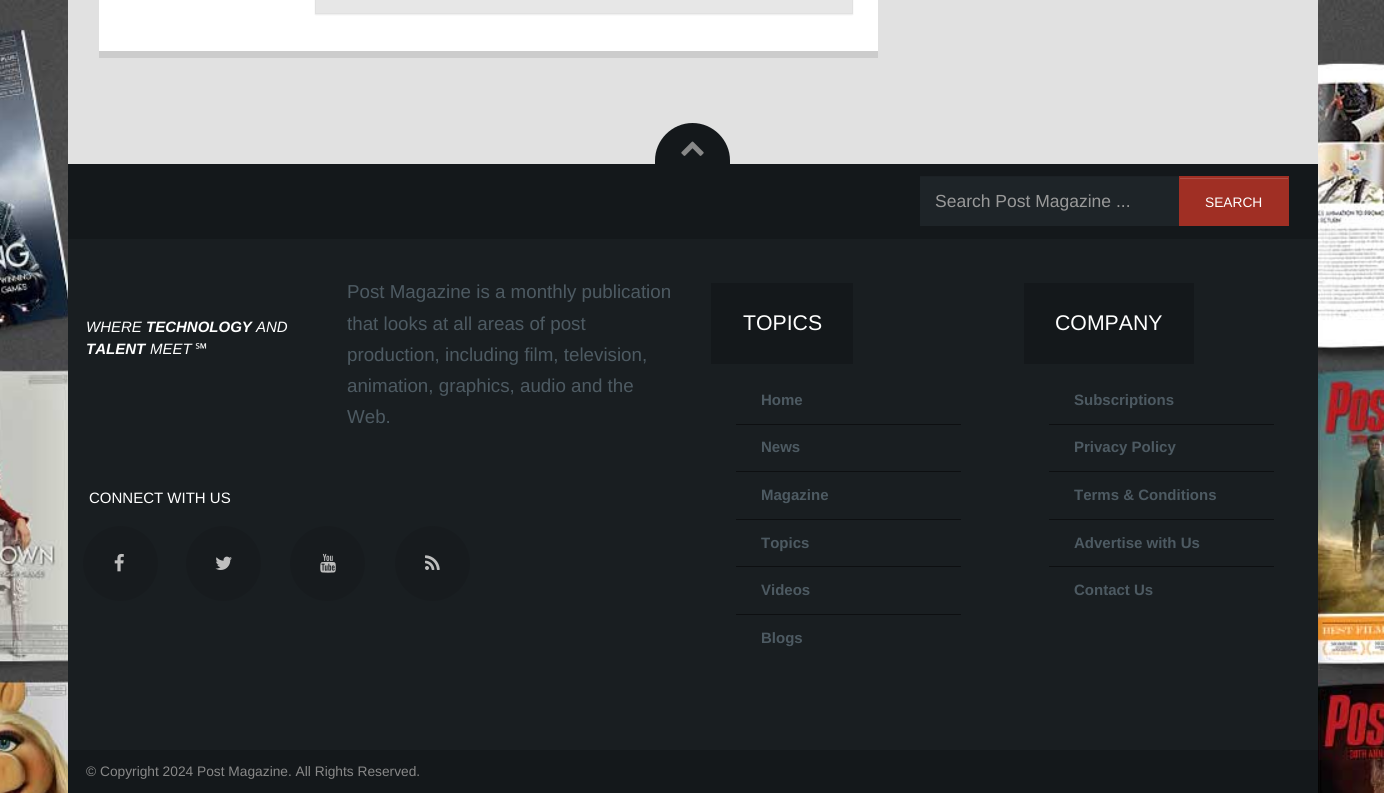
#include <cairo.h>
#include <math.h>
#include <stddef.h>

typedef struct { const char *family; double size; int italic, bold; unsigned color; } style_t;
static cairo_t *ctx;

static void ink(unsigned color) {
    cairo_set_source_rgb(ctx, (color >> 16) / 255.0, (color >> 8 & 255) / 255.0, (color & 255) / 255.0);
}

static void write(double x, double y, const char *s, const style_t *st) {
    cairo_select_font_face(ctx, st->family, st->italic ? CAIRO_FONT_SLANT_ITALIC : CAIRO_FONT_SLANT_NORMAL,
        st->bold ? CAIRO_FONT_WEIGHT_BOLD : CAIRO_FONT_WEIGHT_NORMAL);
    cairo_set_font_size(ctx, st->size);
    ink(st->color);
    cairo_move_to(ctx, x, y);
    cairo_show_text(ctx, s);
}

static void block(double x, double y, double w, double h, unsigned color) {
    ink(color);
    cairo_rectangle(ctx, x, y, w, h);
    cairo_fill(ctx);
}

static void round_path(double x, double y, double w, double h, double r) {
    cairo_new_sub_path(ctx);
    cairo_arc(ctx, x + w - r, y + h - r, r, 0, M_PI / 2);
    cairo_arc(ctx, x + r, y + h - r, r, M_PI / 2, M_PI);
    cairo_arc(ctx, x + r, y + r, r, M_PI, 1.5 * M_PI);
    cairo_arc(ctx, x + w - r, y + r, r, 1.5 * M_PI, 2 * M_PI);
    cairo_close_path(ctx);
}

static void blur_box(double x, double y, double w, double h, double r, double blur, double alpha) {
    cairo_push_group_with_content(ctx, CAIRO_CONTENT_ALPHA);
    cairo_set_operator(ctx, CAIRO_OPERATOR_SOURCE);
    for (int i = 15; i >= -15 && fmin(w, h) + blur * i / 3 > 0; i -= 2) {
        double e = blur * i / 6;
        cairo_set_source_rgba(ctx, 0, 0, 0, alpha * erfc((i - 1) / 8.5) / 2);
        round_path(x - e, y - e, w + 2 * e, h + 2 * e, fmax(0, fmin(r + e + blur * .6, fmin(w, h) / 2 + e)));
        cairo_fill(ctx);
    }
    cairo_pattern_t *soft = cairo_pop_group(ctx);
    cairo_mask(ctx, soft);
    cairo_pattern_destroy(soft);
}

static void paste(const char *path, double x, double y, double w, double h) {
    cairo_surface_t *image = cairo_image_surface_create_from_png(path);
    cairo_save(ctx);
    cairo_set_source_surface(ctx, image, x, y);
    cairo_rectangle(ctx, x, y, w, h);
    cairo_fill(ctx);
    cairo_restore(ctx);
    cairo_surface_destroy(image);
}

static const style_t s1 = {"Liberation Sans", 17.5, 0, 0, 0x999999};
static const style_t s2 = {"Liberation Sans", 13.75, 0, 0, 0xffffff};
static const style_t s3 = {"Liberation Sans", 15, 1, 0, 0xffffff};
static const style_t s4 = {"Liberation Sans", 15, 1, 1, 0xffffff};
static const style_t s5 = {"Noto Sans", 15, 0, 0, 0xffffff};
static const style_t s6 = {"Liberation Sans", 18.75, 0, 0, 0x4d5a62};
static const style_t s7 = {"Liberation Sans", 15, 0, 0, 0xffffff};
static const style_t s8 = {"Liberation Sans", 21.25, 0, 0, 0xffffff};
static const style_t s9 = {"Liberation Sans", 15, 0, 1, 0x4d5a62};
static const style_t s10 = {"Liberation Sans", 13.75, 0, 0, 0x888888};

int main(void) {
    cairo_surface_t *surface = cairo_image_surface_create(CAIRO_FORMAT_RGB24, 1384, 793);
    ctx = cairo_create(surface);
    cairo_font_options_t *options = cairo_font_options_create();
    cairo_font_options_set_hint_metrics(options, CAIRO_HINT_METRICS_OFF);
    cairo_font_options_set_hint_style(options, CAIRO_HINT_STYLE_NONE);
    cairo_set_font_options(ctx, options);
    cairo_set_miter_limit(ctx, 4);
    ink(0xffffff);
    cairo_paint(ctx);
    paste("pic1.png", 0, 0, 1384, 793);
    block(68, 0, 1250, 164, 0xe1e1e1);
    block(99, 0, 779, 51, 0xffffff);
    block(99, 51, 779, 7, 0xcccccc);
    ink(0x000000);
    blur_box(315, -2, 538, 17, 0, 0.5, 0.07);
    ink(0xe7e7e7);
    cairo_rectangle(ctx, 315.5, -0.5, 537, 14);
    cairo_fill_preserve(ctx);
    ink(0xe1e1e1);
    cairo_set_line_width(ctx, 1);
    cairo_stroke(ctx);
    ink(0x14181b);
    cairo_new_path(ctx);
    cairo_move_to(ctx, 692.5, 123);
    cairo_curve_to(ctx, 713, 123, 730, 140, 730, 160.5);
    cairo_line_to(ctx, 730, 164);
    cairo_line_to(ctx, 655, 164);
    cairo_line_to(ctx, 655, 160.5);
    cairo_curve_to(ctx, 655, 140, 672, 123, 692.5, 123);
    cairo_close_path(ctx);
    cairo_fill(ctx);
    paste("pic2.png", 681, 141, 23, 15);
    block(68, 164, 1250, 75, 0x14181b);
    block(920, 177, 259, 49, 0x1e2428);
    block(920, 176, 259, 1, 0x1c2125);
    write(935, 207, "Search Post Magazine ...", &s1);
    block(1179, 176, 110, 50, 0xa02f24);
    block(1180, 178, 108, 1, 0xae4e45);
    write(1205, 207, "SEARCH", &s2);
    block(68, 239, 1250, 511, 0x191e21);
    write(86, 332, "WHERE", &s3);
    write(146, 332, "TECHNOLOGY", &s4);
    write(256, 332, "AND", &s3);
    write(86, 354, "TALENT", &s4);
    write(150, 354, "MEET", &s3);
    write(195, 354, "℠", &s5);
    write(347, 298, "Post Magazine is a monthly publication", &s6);
    write(347, 330, "that looks at all areas of post", &s6);
    write(347, 361, "production, including film, television,", &s6);
    write(347, 392, "animation, graphics, audio and the", &s6);
    write(347, 423, "Web.", &s6);
    write(89, 503, "CONNECT WITH US", &s7);
    ink(0x171b1e);
    cairo_new_path(ctx);
    cairo_arc(ctx, 120.5, 563.5, 37.5, 0, 2 * M_PI);
    cairo_fill(ctx);
    paste("pic3.png", 114, 553, 10, 19);
    cairo_arc(ctx, 223.5, 563.5, 37.5, 0, 2 * M_PI);
    cairo_fill(ctx);
    paste("pic4.png", 215, 556, 17, 14);
    cairo_arc(ctx, 327.5, 563.5, 37.5, 0, 2 * M_PI);
    cairo_fill(ctx);
    paste("pic5.png", 320, 553, 16, 20);
    cairo_arc(ctx, 432.5, 563.5, 37.5, 0, 2 * M_PI);
    cairo_fill(ctx);
    paste("pic6.png", 425, 555, 15, 15);
    block(711, 283, 142, 81, 0x14181b);
    write(743, 330, "TOPICS", &s8);
    write(761, 405, "Home", &s9);
    block(736, 424, 225, 1, 0x0d0f11);
    write(761, 452, "News", &s9);
    block(736, 471, 225, 1, 0x0d0f11);
    write(761, 500, "Magazine", &s9);
    block(736, 519, 225, 1, 0x0d0f11);
    write(761, 548, "Topics", &s9);
    block(736, 566, 225, 1, 0x0d0f11);
    write(761, 595, "Videos", &s9);
    block(736, 614, 225, 1, 0x0d0f11);
    write(761, 643, "Blogs", &s9);
    block(1024, 283, 170, 81, 0x14181b);
    write(1055, 330, "COMPANY", &s8);
    write(1074, 405, "Subscriptions", &s9);
    block(1049, 424, 225, 1, 0x0d0f11);
    write(1074, 452, "Privacy Policy", &s9);
    block(1049, 471, 225, 1, 0x0d0f11);
    write(1074, 500, "Terms & Conditions", &s9);
    block(1049, 519, 225, 1, 0x0d0f11);
    write(1074, 548, "Advertise with Us", &s9);
    block(1049, 566, 225, 1, 0x0d0f11);
    write(1074, 595, "Contact Us", &s9);
    block(68, 750, 1250, 43, 0x14181b);
    write(86, 776, "© Copyright 2024 Post Magazine. All Rights Reserved.", &s10);
    cairo_surface_write_to_png(surface, "screenshot.png");
    cairo_font_options_destroy(options);
    cairo_destroy(ctx);
    cairo_surface_destroy(surface);
    return 0;
}
